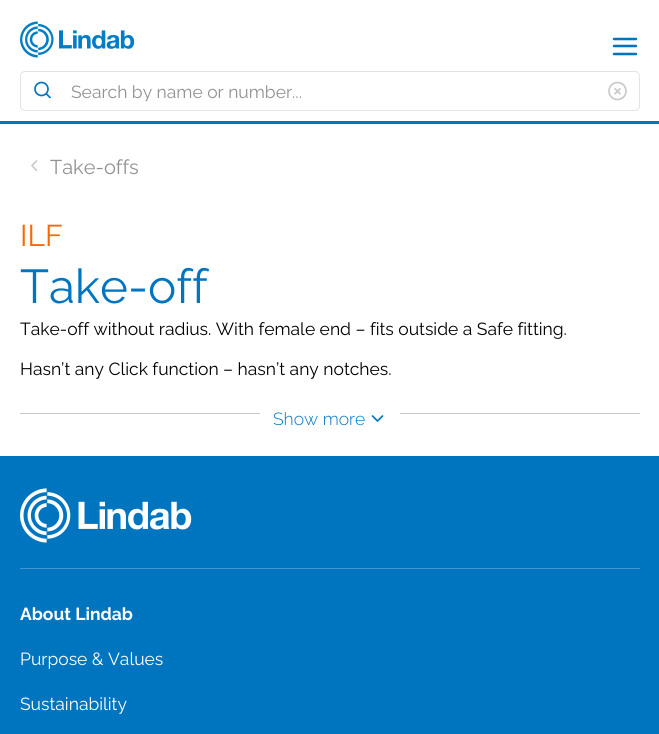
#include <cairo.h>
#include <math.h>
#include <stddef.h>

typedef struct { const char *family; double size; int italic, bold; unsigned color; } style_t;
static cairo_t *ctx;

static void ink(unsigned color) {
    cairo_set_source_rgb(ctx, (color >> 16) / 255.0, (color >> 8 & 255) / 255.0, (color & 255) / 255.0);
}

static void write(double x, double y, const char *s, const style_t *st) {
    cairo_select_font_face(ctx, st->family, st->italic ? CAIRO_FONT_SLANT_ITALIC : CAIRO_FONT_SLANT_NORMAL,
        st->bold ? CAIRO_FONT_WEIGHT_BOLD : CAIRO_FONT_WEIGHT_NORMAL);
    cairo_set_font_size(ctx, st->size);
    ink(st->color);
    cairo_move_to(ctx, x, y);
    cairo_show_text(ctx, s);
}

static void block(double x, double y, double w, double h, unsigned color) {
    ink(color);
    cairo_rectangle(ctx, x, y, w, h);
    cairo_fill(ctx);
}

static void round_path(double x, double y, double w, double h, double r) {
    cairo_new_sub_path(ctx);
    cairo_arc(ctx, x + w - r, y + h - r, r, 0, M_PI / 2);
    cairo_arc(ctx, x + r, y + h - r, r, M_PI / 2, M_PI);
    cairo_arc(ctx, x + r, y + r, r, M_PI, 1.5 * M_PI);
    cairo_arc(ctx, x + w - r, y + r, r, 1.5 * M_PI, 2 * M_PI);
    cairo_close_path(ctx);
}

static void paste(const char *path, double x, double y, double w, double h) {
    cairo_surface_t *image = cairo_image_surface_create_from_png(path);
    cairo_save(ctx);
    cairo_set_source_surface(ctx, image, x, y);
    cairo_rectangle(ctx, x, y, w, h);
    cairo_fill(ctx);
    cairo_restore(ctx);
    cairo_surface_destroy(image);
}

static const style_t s1 = {"Raleway Thin", 17.5, 0, 0, 0x919191};
static const style_t s2 = {"Raleway Thin", 20, 0, 0, 0x919191};
static const style_t s3 = {"Raleway Thin", 30, 0, 0, 0xff6600};
static const style_t s4 = {"Raleway Thin", 47.5, 0, 0, 0x0075bf};
static const style_t s5 = {"Raleway Thin", 17.5, 0, 0, 0x000000};
static const style_t s6 = {"Raleway Light", 17.5, 0, 0, 0x0075bf};
static const style_t s7 = {"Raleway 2 Thin", 17.5, 0, 0, 0xffffff};
static const style_t s8 = {"Raleway Thin", 17.5, 0, 0, 0xffffff};

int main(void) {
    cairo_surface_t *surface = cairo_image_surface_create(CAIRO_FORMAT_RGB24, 659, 734);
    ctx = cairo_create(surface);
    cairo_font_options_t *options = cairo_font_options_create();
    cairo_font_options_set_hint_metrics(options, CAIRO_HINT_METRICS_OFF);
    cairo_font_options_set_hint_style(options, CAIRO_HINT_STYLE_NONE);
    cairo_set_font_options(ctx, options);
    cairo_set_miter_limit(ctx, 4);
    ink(0xffffff);
    cairo_paint(ctx);
    block(0, 121, 659, 3, 0x0075bf);
    paste("pic1.png", 20, 21, 115, 37);
    cairo_new_path(ctx);
    cairo_move_to(ctx, 614, 46);
    cairo_line_to(ctx, 636, 46);
    cairo_move_to(ctx, 614, 39);
    cairo_line_to(ctx, 636, 39);
    cairo_move_to(ctx, 614, 54);
    cairo_line_to(ctx, 636, 54);
    cairo_set_line_width(ctx, 2.5);
    cairo_set_line_cap(ctx, CAIRO_LINE_CAP_ROUND);
    cairo_set_line_join(ctx, CAIRO_LINE_JOIN_ROUND);
    cairo_stroke(ctx);
    round_path(20.5, 71.5, 619, 39, 4.5);
    ink(0xe4e4e4);
    cairo_set_line_width(ctx, 1);
    cairo_set_line_cap(ctx, CAIRO_LINE_CAP_BUTT);
    cairo_set_line_join(ctx, CAIRO_LINE_JOIN_MITER);
    cairo_stroke(ctx);
    cairo_arc(ctx, 41.5, 89, 6.5, 0, 2 * M_PI);
    ink(0x0075bf);
    cairo_set_line_width(ctx, 1.7);
    cairo_stroke(ctx);
    cairo_new_path(ctx);
    cairo_move_to(ctx, 50, 97.5);
    cairo_line_to(ctx, 46.5, 94);
    cairo_set_line_cap(ctx, CAIRO_LINE_CAP_ROUND);
    cairo_set_line_join(ctx, CAIRO_LINE_JOIN_ROUND);
    cairo_stroke(ctx);
    cairo_save(ctx);
    cairo_rectangle(ctx, 71, 81, 508, 20);
    cairo_clip(ctx);
    write(71, 98, "Search by name or number...", &s1);
    cairo_restore(ctx);
    paste("pic2.png", 608, 81, 19, 20);
    cairo_new_path(ctx);
    cairo_move_to(ctx, 36.5, 170.5);
    cairo_line_to(ctx, 32, 165.5);
    cairo_line_to(ctx, 36.5, 161);
    ink(0xc9c9c9);
    cairo_set_line_width(ctx, 1.6);
    cairo_stroke(ctx);
    write(50, 174, "Take-offs", &s2);
    write(20, 246, "ILF", &s3);
    write(20, 303, "Take-off", &s4);
    write(20, 335, "Take-off without radius. With female end – fits outside a Safe fitting.", &s5);
    write(20, 375, "Hasn’t any Click function – hasn’t any notches.", &s5);
    block(20, 413, 620, 1, 0xc9c9c9);
    block(260, 413, 140, 1, 0xffffff);
    write(273, 425, "Show more", &s6);
    cairo_new_path(ctx);
    cairo_move_to(ctx, 372.5, 416);
    cairo_line_to(ctx, 377.5, 421);
    cairo_line_to(ctx, 382.5, 416);
    cairo_set_line_width(ctx, 1.7);
    cairo_stroke(ctx);
    block(0, 456, 659, 278, 0x0075bf);
    paste("pic3.png", 20, 488, 172, 55);
    block(20, 568, 620, 1, 0x4098cf);
    write(20, 620, "About Lindab", &s7);
    write(20, 665, "Purpose & Values", &s8);
    write(20, 710, "Sustainability", &s8);
    cairo_surface_write_to_png(surface, "screenshot.png");
    cairo_font_options_destroy(options);
    cairo_destroy(ctx);
    cairo_surface_destroy(surface);
    return 0;
}
